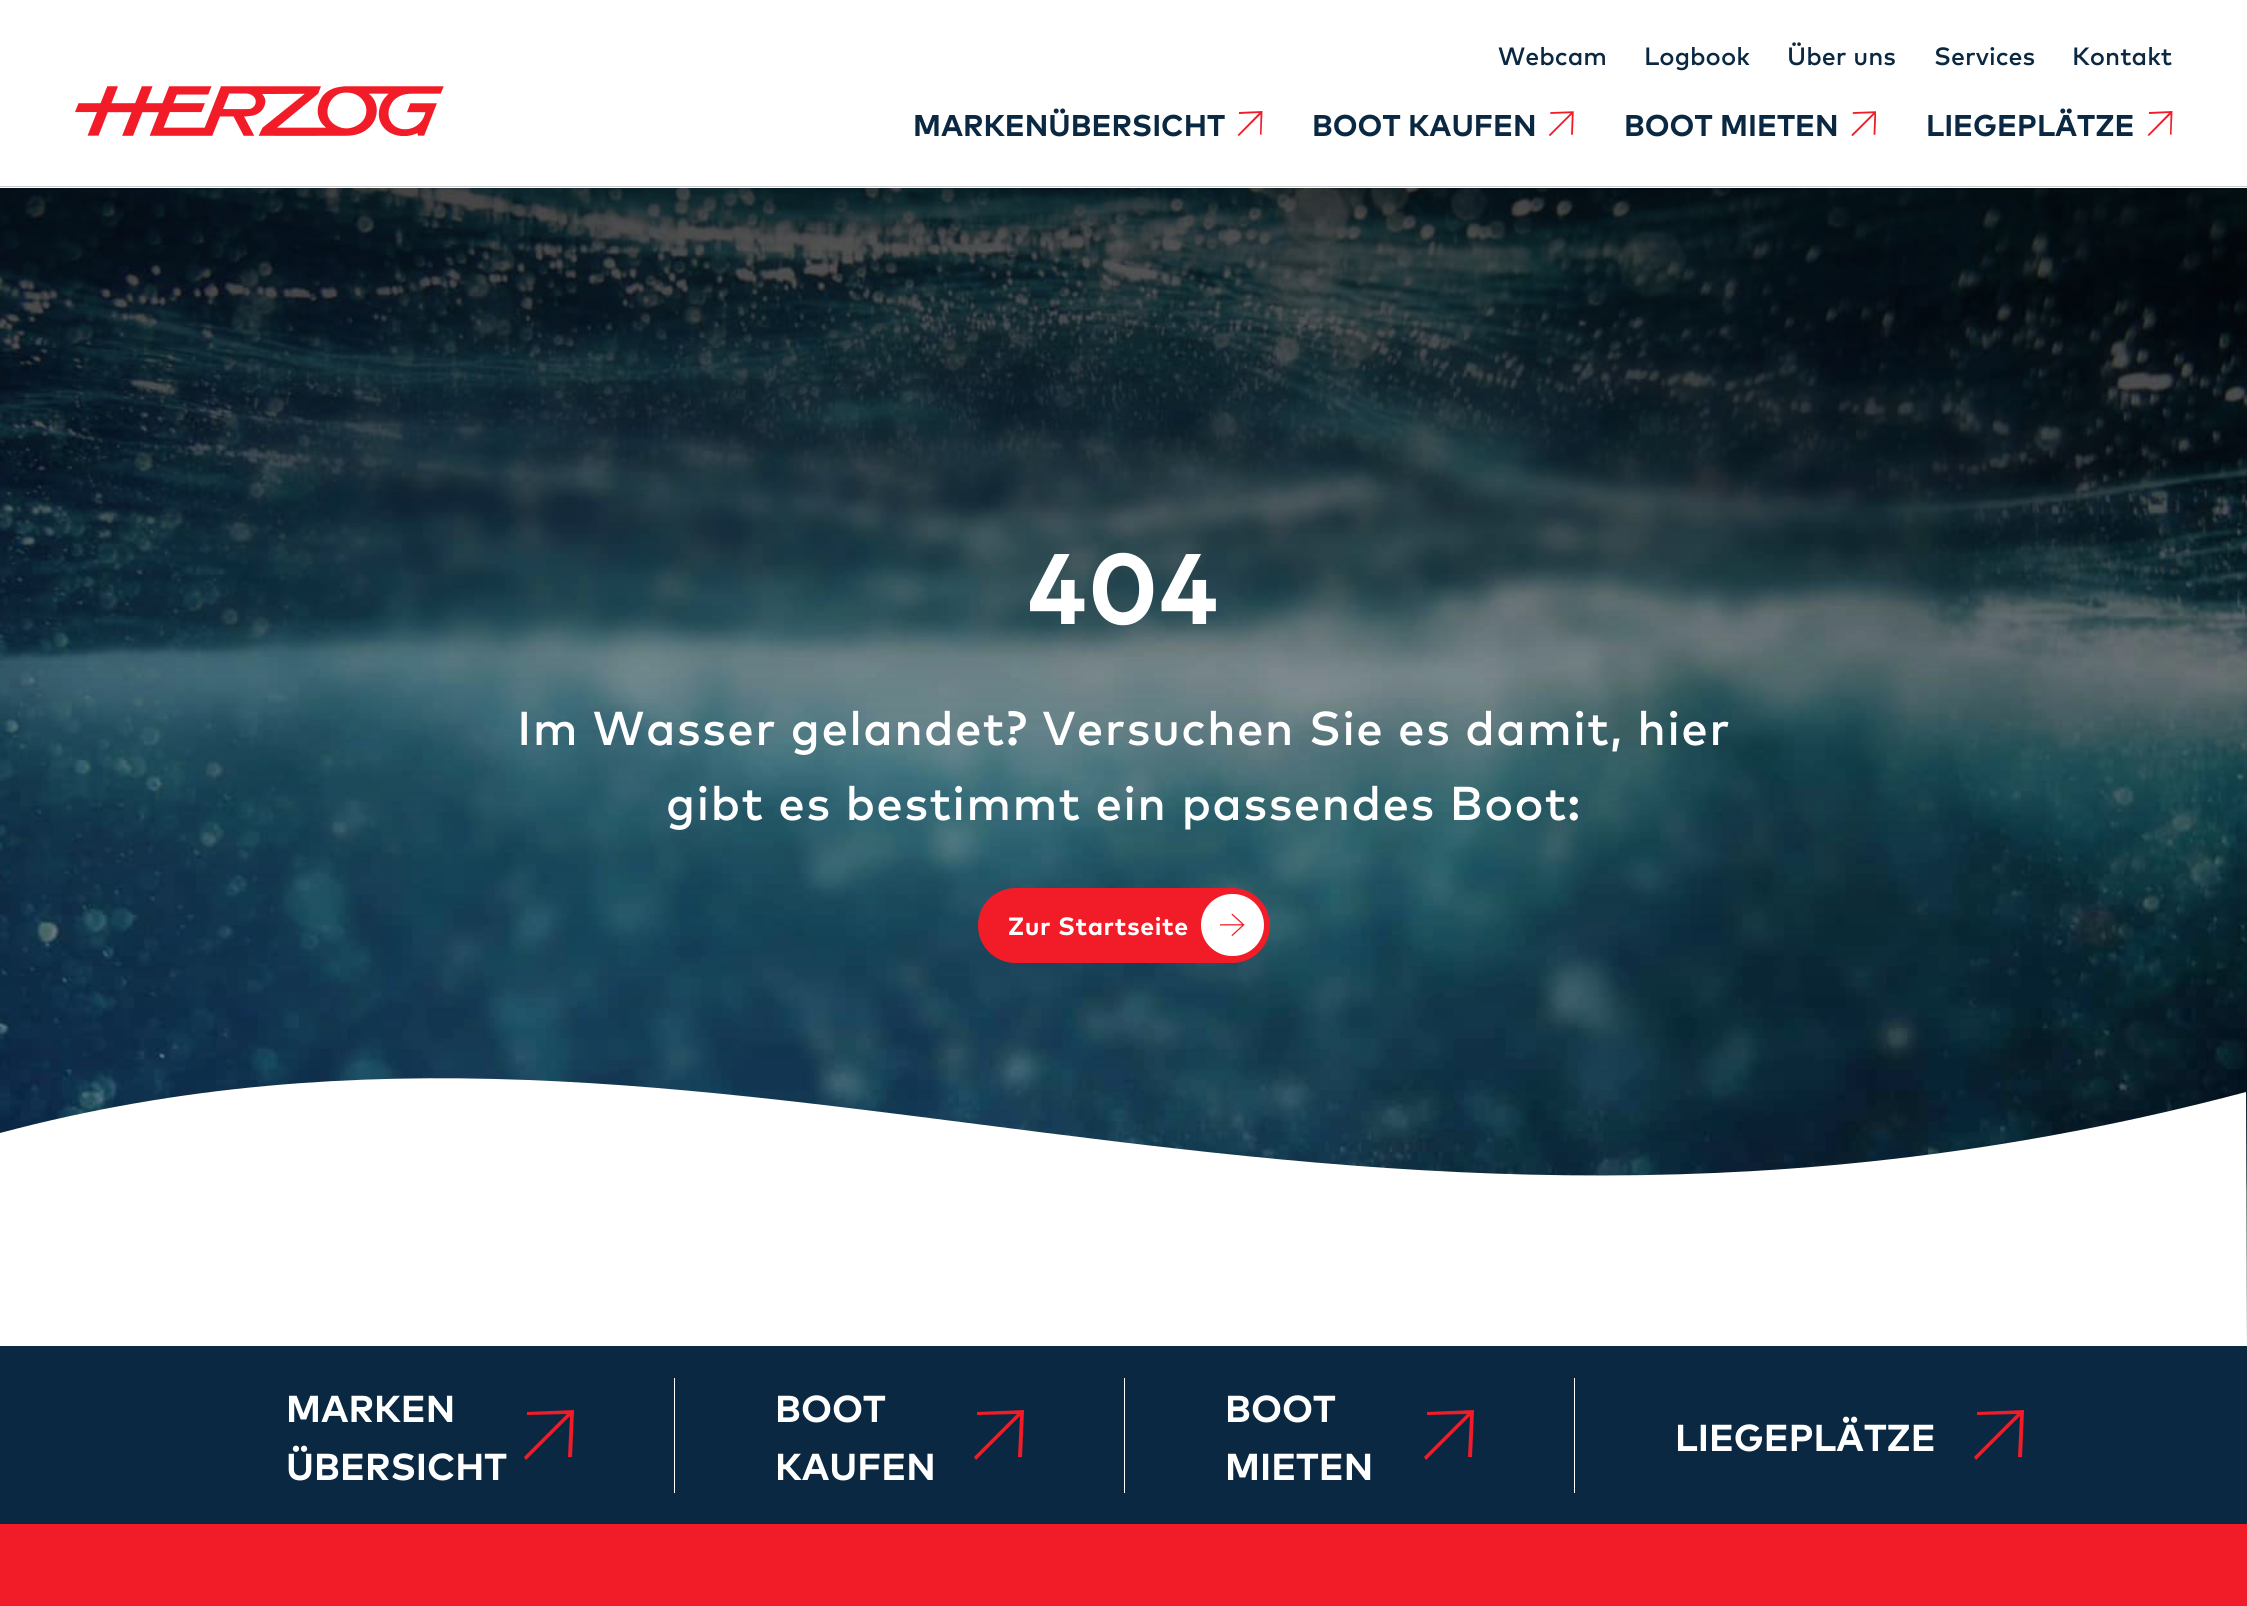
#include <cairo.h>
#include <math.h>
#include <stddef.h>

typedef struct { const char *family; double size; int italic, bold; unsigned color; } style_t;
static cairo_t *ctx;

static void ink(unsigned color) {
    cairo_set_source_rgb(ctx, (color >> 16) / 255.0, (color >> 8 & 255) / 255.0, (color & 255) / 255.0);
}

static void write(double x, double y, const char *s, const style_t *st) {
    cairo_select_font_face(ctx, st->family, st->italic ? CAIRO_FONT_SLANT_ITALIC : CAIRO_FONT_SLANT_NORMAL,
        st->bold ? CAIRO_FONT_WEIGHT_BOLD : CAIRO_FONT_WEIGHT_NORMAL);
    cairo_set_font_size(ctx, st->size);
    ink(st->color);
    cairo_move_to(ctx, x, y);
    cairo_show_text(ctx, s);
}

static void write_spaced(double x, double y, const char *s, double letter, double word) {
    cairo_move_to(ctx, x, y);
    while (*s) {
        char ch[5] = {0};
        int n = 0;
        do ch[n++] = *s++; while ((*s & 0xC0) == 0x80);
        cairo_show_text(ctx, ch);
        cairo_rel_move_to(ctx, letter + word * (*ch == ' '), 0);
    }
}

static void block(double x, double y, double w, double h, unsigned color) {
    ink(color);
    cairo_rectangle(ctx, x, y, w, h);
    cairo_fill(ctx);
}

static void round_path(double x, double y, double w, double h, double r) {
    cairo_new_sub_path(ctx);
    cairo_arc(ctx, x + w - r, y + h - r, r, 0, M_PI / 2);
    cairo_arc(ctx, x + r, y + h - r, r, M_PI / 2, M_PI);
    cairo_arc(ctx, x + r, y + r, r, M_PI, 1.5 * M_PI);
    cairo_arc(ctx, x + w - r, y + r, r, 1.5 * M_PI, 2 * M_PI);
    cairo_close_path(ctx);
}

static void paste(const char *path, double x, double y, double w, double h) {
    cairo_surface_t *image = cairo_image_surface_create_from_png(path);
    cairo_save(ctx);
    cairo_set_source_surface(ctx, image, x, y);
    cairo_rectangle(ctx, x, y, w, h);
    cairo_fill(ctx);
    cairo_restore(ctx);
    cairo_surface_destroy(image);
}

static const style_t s1 = {"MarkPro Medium", 25, 0, 0, 0x0a2842};
static const style_t s2 = {"MarkPro", 30, 0, 1, 0x0a2842};
static const style_t s3 = {"MarkPro", 37.5, 0, 1, 0xffffff};

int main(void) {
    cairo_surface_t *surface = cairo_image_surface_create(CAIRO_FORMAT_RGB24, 2247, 1606);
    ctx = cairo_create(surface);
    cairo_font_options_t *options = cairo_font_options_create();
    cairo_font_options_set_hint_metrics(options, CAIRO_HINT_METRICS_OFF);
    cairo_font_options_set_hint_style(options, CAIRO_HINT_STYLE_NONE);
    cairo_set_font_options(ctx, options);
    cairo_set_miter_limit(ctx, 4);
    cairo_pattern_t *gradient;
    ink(0xffffff);
    cairo_paint(ctx);
    block(0, 186, 2247, 1, 0xcacaca);
    paste("pic1.png", 75, 86, 369, 50);
    write(1498, 65, "Webcam", &s1);
    write(1644, 65, "Logbook", &s1);
    write(1787, 65, "Über uns", &s1);
    write(1934, 65, "Services", &s1);
    write(2072, 65, "Kontakt", &s1);
    ink(0xf21c28);
    cairo_set_fill_rule(ctx, CAIRO_FILL_RULE_EVEN_ODD);
    cairo_new_path(ctx);
    cairo_move_to(ctx, 1239, 112);
    cairo_line_to(ctx, 1239, 114);
    cairo_line_to(ctx, 1259, 113);
    cairo_line_to(ctx, 1237.5, 135);
    cairo_line_to(ctx, 1239, 136);
    cairo_line_to(ctx, 1260.5, 114.5);
    cairo_line_to(ctx, 1260, 134.5);
    cairo_line_to(ctx, 1261.5, 135);
    cairo_line_to(ctx, 1262.5, 111);
    cairo_close_path(ctx);
    cairo_fill(ctx);
    write(913, 136, "MARKENÜBERSICHT", &s2);
    paste("pic2.png", 1549, 111, 25, 25);
    write(1312, 136, "BOOT KAUFEN", &s2);
    paste("pic3.png", 1851, 111, 25, 25);
    write(1624, 136, "BOOT MIETEN", &s2);
    ink(0xf21c28);
    cairo_new_path(ctx);
    cairo_move_to(ctx, 2149, 112);
    cairo_line_to(ctx, 2149, 114);
    cairo_line_to(ctx, 2169, 113);
    cairo_line_to(ctx, 2147.5, 135);
    cairo_line_to(ctx, 2149, 136);
    cairo_line_to(ctx, 2170.5, 114.5);
    cairo_line_to(ctx, 2170, 134.5);
    cairo_line_to(ctx, 2171.5, 135);
    cairo_line_to(ctx, 2172.5, 111);
    cairo_close_path(ctx);
    cairo_fill(ctx);
    write(1926, 136, "LIEGEPLÄTZE", &s2);
    paste("pic4.png", 0, 188, 2247, 1157);
    gradient = cairo_pattern_create_linear(1124, 1346, 1124, 141);
    cairo_pattern_add_color_stop_rgba(gradient, 0, 0, 0, 0, 0);
    cairo_pattern_add_color_stop_rgba(gradient, 1, 0, 0, 0, 0.7);
    cairo_set_source(ctx, gradient);
    cairo_pattern_destroy(gradient);
    cairo_rectangle(ctx, 0, 188, 2247, 1121);
    cairo_fill(ctx);
    cairo_set_font_size(ctx, 100);
    ink(0xffffff);
    write_spaced(1028, 624, "404", 1.25, 0);
    cairo_select_font_face(ctx, "MarkPro Medium", CAIRO_FONT_SLANT_NORMAL, CAIRO_FONT_WEIGHT_NORMAL);
    cairo_set_font_size(ctx, 47.5);
    write_spaced(517, 745, "Im Wasser gelandet? Versuchen Sie es damit, hier", 1.25, 0);
    write_spaced(666, 820, "gibt es bestimmt ein passendes Boot:", 1.25, 0);
    ink(0xf21c28);
    round_path(978, 888, 292, 75, 37.5);
    cairo_fill(ctx);
    cairo_select_font_face(ctx, "MarkPro", CAIRO_FONT_SLANT_NORMAL, CAIRO_FONT_WEIGHT_BOLD);
    cairo_set_font_size(ctx, 25);
    ink(0xffffff);
    write_spaced(1008, 935, "Zur Startseite", 0.6, 0);
    round_path(1201, 894, 63, 62, 31);
    cairo_fill(ctx);
    paste("pic5.png", 1220, 913, 25, 23);
    cairo_new_path(ctx);
    cairo_move_to(ctx, 0, 1133);
    cairo_curve_to(ctx, 724, 940, 1314, 1339, 2246, 1092);
    cairo_line_to(ctx, 2247, 1346);
    cairo_line_to(ctx, 0, 1346);
    cairo_close_path(ctx);
    cairo_fill(ctx);
    block(0, 1346, 2247, 178, 0x0a2842);
    ink(0xf21c28);
    cairo_new_path(ctx);
    cairo_move_to(ctx, 527, 1412);
    cairo_line_to(ctx, 527, 1415);
    cairo_line_to(ctx, 567, 1414);
    cairo_line_to(ctx, 524, 1457);
    cairo_line_to(ctx, 526, 1460);
    cairo_line_to(ctx, 570, 1416);
    cairo_line_to(ctx, 568, 1457);
    cairo_line_to(ctx, 572, 1457);
    cairo_line_to(ctx, 574, 1410);
    cairo_close_path(ctx);
    cairo_fill(ctx);
    write(286, 1422, "MARKEN", &s3);
    write(286, 1480, "ÜBERSICHT", &s3);
    block(674, 1378, 1, 115, 0xffffff);
    ink(0xf21c28);
    cairo_new_path(ctx);
    cairo_move_to(ctx, 977, 1412);
    cairo_line_to(ctx, 977, 1415);
    cairo_line_to(ctx, 1017, 1414);
    cairo_line_to(ctx, 974, 1457);
    cairo_line_to(ctx, 976, 1460);
    cairo_line_to(ctx, 1020, 1416);
    cairo_line_to(ctx, 1018, 1457);
    cairo_line_to(ctx, 1022, 1457);
    cairo_line_to(ctx, 1024, 1410);
    cairo_close_path(ctx);
    cairo_fill(ctx);
    write(775, 1422, "BOOT", &s3);
    write(775, 1480, "KAUFEN", &s3);
    block(1124, 1378, 1, 115, 0xffffff);
    ink(0xf21c28);
    cairo_new_path(ctx);
    cairo_move_to(ctx, 1427, 1412);
    cairo_line_to(ctx, 1427, 1415);
    cairo_line_to(ctx, 1467, 1414);
    cairo_line_to(ctx, 1424, 1457);
    cairo_line_to(ctx, 1426, 1460);
    cairo_line_to(ctx, 1470, 1416);
    cairo_line_to(ctx, 1468, 1457);
    cairo_line_to(ctx, 1472, 1457);
    cairo_line_to(ctx, 1474, 1410);
    cairo_close_path(ctx);
    cairo_fill(ctx);
    write(1225, 1422, "BOOT", &s3);
    write(1225, 1480, "MIETEN", &s3);
    block(1574, 1378, 1, 115, 0xffffff);
    ink(0xf21c28);
    cairo_new_path(ctx);
    cairo_move_to(ctx, 1977, 1412);
    cairo_line_to(ctx, 1977, 1415);
    cairo_line_to(ctx, 2017, 1414);
    cairo_line_to(ctx, 1974, 1457);
    cairo_line_to(ctx, 1976, 1460);
    cairo_line_to(ctx, 2020, 1416);
    cairo_line_to(ctx, 2018, 1457);
    cairo_line_to(ctx, 2022, 1457);
    cairo_line_to(ctx, 2024, 1410);
    cairo_close_path(ctx);
    cairo_fill(ctx);
    write(1675, 1451, "LIEGEPLÄTZE", &s3);
    block(0, 1524, 2247, 82, 0xf21c28);
    cairo_surface_write_to_png(surface, "screenshot.png");
    cairo_font_options_destroy(options);
    cairo_destroy(ctx);
    cairo_surface_destroy(surface);
    return 0;
}
